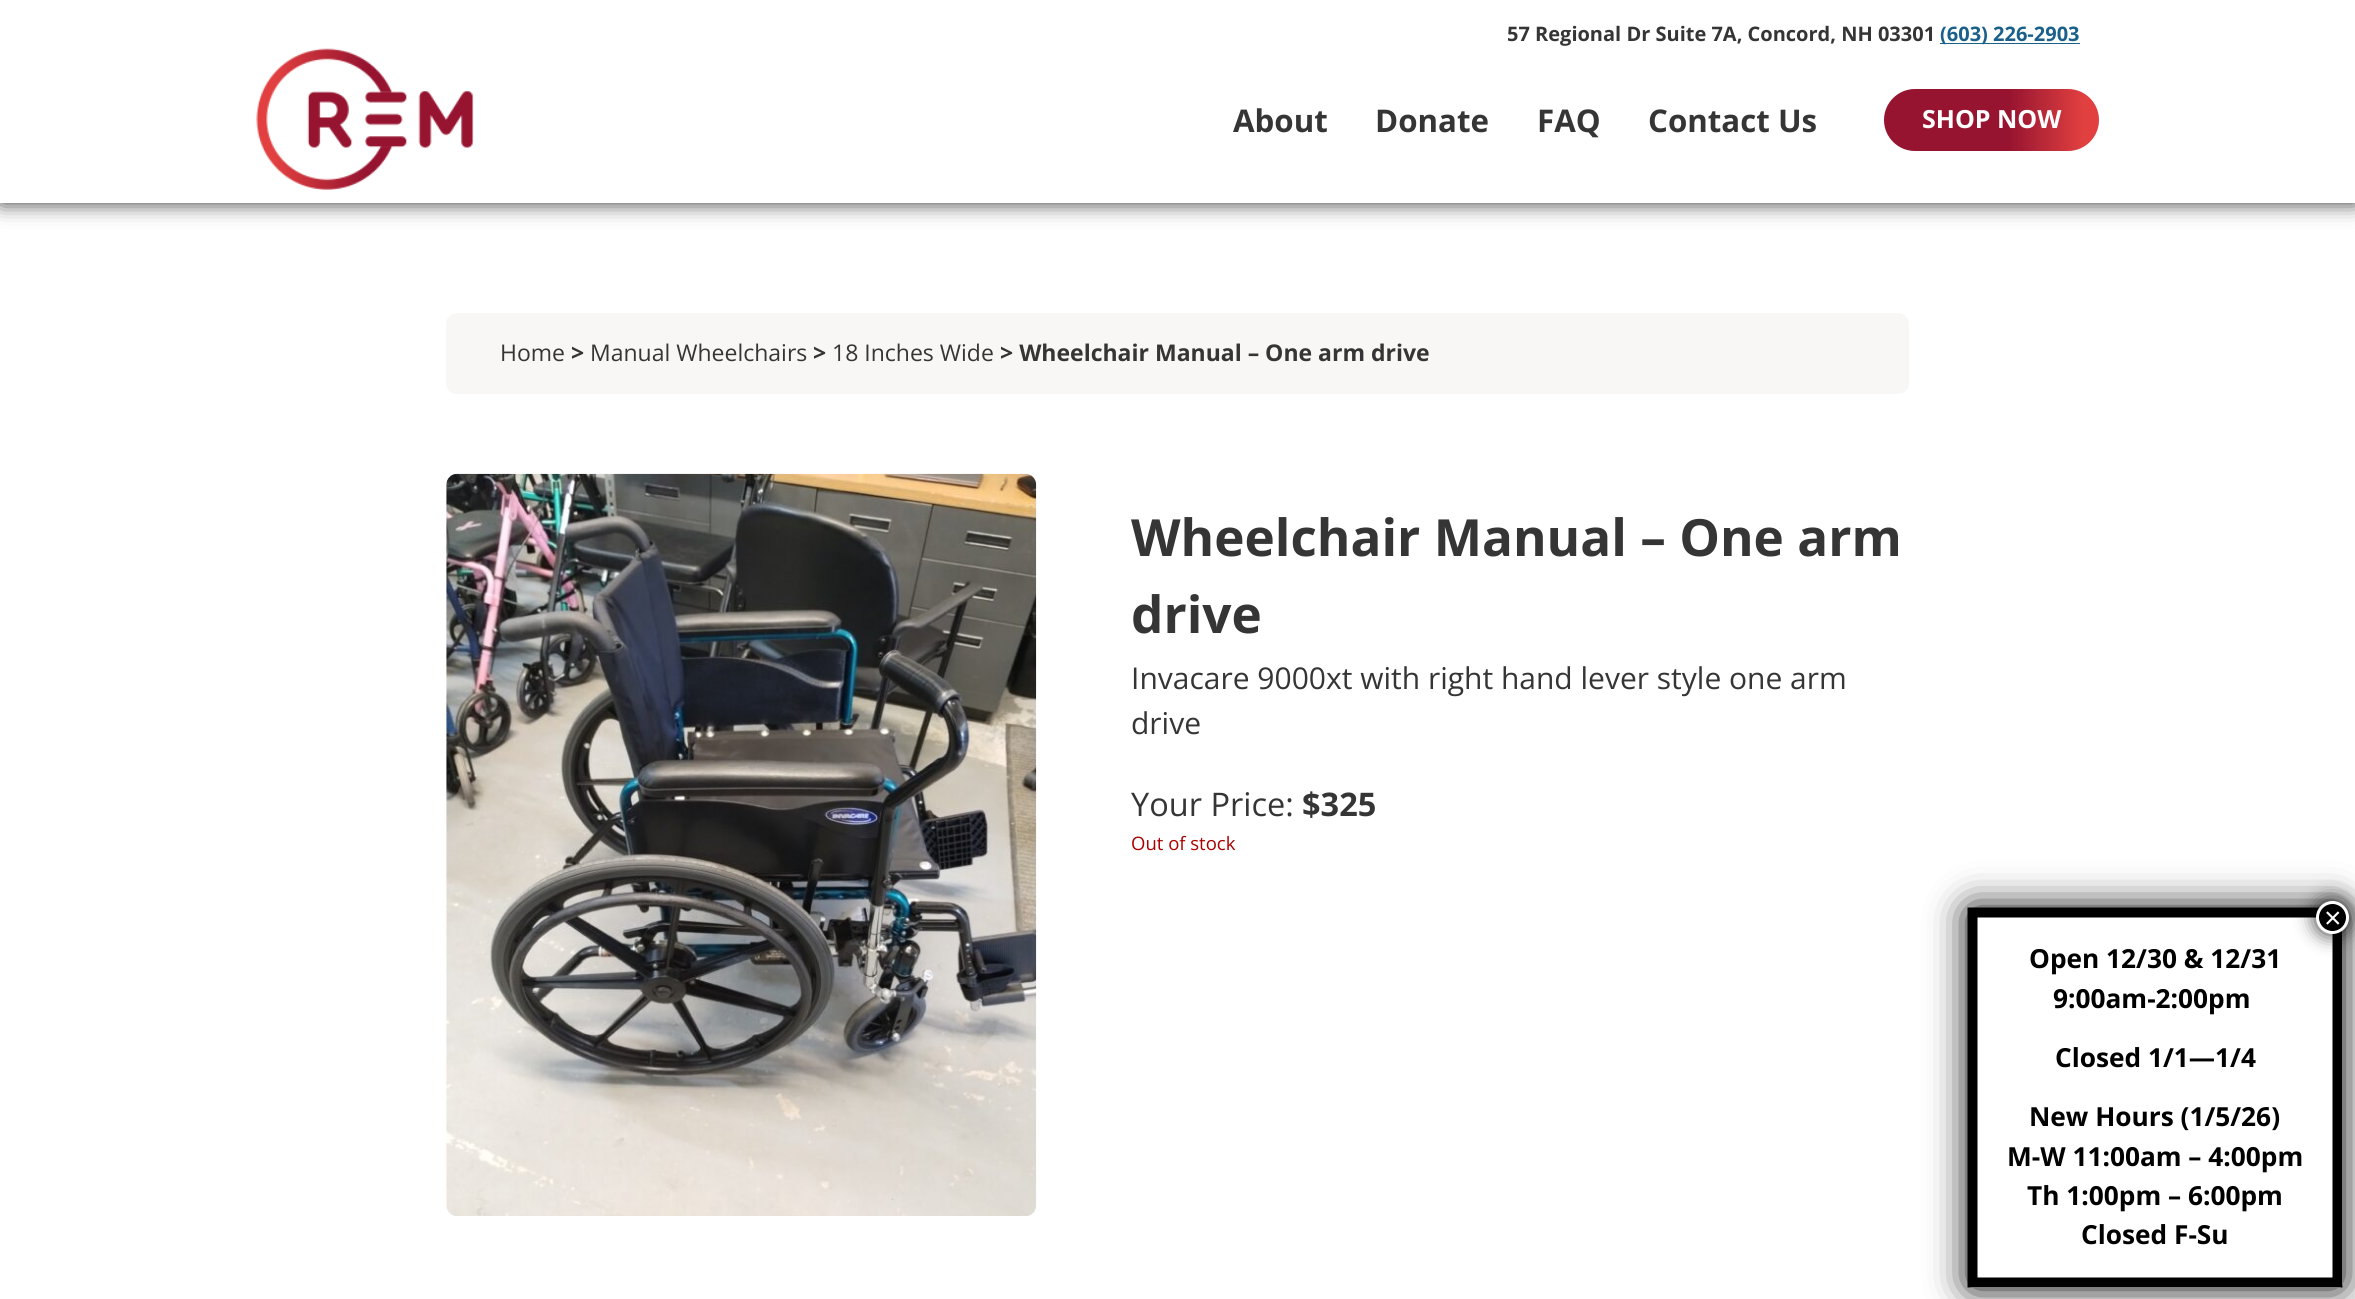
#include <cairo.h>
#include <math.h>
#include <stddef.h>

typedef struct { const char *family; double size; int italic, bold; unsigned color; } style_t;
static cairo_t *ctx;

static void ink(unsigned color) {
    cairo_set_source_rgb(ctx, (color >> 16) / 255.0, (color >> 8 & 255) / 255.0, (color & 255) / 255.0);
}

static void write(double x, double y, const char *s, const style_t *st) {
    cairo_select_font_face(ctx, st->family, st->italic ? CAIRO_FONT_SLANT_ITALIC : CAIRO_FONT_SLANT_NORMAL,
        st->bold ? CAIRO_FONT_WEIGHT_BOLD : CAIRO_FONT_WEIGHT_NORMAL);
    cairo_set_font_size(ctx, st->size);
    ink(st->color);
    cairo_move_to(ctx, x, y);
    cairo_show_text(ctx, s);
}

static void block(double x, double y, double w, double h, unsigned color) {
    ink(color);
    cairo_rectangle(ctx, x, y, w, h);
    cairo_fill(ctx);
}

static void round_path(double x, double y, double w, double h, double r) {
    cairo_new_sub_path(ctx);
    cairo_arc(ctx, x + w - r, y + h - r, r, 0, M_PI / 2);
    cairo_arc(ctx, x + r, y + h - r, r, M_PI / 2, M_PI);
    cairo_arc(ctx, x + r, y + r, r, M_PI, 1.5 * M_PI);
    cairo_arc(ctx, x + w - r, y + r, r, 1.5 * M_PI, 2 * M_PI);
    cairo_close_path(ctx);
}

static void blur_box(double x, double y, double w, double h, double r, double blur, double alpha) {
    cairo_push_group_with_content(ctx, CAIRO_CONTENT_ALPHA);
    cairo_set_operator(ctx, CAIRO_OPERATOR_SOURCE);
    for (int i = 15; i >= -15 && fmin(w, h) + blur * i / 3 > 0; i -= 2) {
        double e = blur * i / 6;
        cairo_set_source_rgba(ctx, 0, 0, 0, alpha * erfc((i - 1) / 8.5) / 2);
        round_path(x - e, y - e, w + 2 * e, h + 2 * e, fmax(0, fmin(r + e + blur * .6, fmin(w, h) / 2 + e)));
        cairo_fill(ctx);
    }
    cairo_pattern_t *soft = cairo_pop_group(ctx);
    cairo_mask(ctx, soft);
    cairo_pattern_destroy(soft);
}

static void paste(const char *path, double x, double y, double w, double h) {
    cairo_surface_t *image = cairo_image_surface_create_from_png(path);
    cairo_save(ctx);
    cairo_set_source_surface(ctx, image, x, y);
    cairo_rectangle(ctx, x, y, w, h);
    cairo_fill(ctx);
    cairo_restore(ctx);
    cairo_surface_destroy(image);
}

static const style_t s1 = {"Open Sans", 20, 0, 1, 0x353535};
static const style_t s2 = {"Open Sans", 20, 0, 1, 0x1a608b};
static const style_t s3 = {"Open Sans", 31.25, 0, 1, 0x353535};
static const style_t s4 = {"Open Sans", 25, 0, 1, 0xffffff};
static const style_t s5 = {"Open Sans", 23, 0, 0, 0x353535};
static const style_t s6 = {"Open Sans", 23, 0, 1, 0x353535};
static const style_t s7 = {"Open Sans", 51.25, 0, 1, 0x353535};
static const style_t s8 = {"Open Sans", 30, 0, 0, 0x353535};
static const style_t s9 = {"Open Sans", 32.5, 0, 0, 0x353535};
static const style_t s10 = {"Open Sans", 32.5, 0, 1, 0x353535};
static const style_t s11 = {"Open Sans", 18.5, 0, 0, 0xaa0000};
static const style_t s12 = {"Liberation Sans", 30, 0, 0, 0xffffff};
static const style_t s13 = {"Open Sans", 26.25, 0, 1, 0x000000};

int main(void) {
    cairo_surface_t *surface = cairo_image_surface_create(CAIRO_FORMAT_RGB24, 2355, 1299);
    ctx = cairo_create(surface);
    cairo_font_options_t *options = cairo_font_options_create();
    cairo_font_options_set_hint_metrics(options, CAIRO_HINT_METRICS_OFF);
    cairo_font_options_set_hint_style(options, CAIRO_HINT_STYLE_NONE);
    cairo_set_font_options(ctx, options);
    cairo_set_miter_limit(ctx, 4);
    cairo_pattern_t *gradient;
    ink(0xffffff);
    cairo_paint(ctx);
    cairo_save(ctx);
    cairo_set_fill_rule(ctx, CAIRO_FILL_RULE_EVEN_ODD);
    cairo_new_path(ctx);
    cairo_move_to(ctx, 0, 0);
    cairo_line_to(ctx, 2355, 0);
    cairo_line_to(ctx, 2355, 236);
    cairo_line_to(ctx, 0, 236);
    cairo_close_path(ctx);
    cairo_move_to(ctx, 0, 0);
    cairo_line_to(ctx, 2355, 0);
    cairo_line_to(ctx, 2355, 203);
    cairo_line_to(ctx, 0, 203);
    cairo_close_path(ctx);
    cairo_clip(ctx);
    ink(0x333333);
    blur_box(1, 0, 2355, 203, 0, 10.5, 1);
    cairo_restore(ctx);
    write(1507, 41, "57 Regional Dr Suite 7A, Concord, NH 03301", &s1);
    block(1940, 43, 140, 1, 0x1a608b);
    write(1940, 41, "(603) 226-2903", &s2);
    paste("pic1.png", 256, 48, 218, 142);
    write(1233, 132, "About", &s3);
    write(1375, 132, "Donate", &s3);
    write(1537, 132, "FAQ", &s3);
    write(1648, 132, "Contact Us", &s3);
    gradient = cairo_pattern_create_linear(1884, 120, 2099, 120);
    cairo_pattern_add_color_stop_rgba(gradient, 0.58, 0.588, 0.078, 0.188, 1);
    cairo_pattern_add_color_stop_rgba(gradient, 0.93, 0.886, 0.251, 0.251, 1);
    cairo_set_source(ctx, gradient);
    cairo_pattern_destroy(gradient);
    round_path(1884, 89, 215, 62, 31);
    cairo_fill(ctx);
    write(1922, 128, "SHOP NOW", &s4);
    ink(0xf8f7f5);
    round_path(446, 313, 1463, 81, 11);
    cairo_fill(ctx);
    write(500, 361, "Home", &s5);
    write(571, 361, ">", &s6);
    write(590, 361, "Manual Wheelchairs", &s5);
    write(813, 361, ">", &s6);
    write(832, 361, "18 Inches Wide", &s5);
    write(1000, 361, "> Wheelchair Manual – One arm drive", &s6);
    paste("pic2.png", 446, 473, 591, 743);
    write(1131, 556, "Wheelchair Manual – One arm", &s7);
    write(1131, 633, "drive", &s7);
    write(1131, 689, "Invacare 9000xt with right hand lever style one arm", &s8);
    write(1131, 734, "drive", &s8);
    write(1131, 816, "Your Price:", &s9);
    write(1302, 816, "$325", &s10);
    write(1131, 850, "Out of stock", &s11);
    ink(0x020202);
    blur_box(1968, 908, 375, 380, 4, 19, 1);
    ink(0xffffff);
    round_path(1968, 908, 375, 380, 4);
    cairo_fill(ctx);
    cairo_new_path(ctx);
    cairo_move_to(ctx, 1972.5, 912.5);
    cairo_line_to(ctx, 2337.5, 912.5);
    cairo_line_to(ctx, 2337.5, 1282.5);
    cairo_line_to(ctx, 1972.5, 1282.5);
    cairo_close_path(ctx);
    ink(0x000000);
    cairo_set_line_width(ctx, 10);
    cairo_stroke(ctx);
    ink(0x020202);
    blur_box(2315, 900, 35, 35, 17.5, 9.5, 0.75);
    ink(0x000000);
    cairo_arc(ctx, 2332.5, 917.5, 15, 0, 2 * M_PI);
    cairo_fill_preserve(ctx);
    ink(0xffffff);
    cairo_set_line_width(ctx, 3);
    cairo_stroke(ctx);
    write(2324, 928, "×", &s12);
    write(2029, 968, "Open 12/30 & 12/31", &s13);
    write(2053, 1008, "9:00am-2:00pm", &s13);
    write(2055, 1067, "Closed 1/1—1/4", &s13);
    write(2029, 1126, "New Hours (1/5/26)", &s13);
    write(2007, 1166, "M-W 11:00am – 4:00pm", &s13);
    write(2027, 1205, "Th 1:00pm – 6:00pm", &s13);
    write(2081, 1244, "Closed F-Su", &s13);
    cairo_surface_write_to_png(surface, "screenshot.png");
    cairo_font_options_destroy(options);
    cairo_destroy(ctx);
    cairo_surface_destroy(surface);
    return 0;
}
